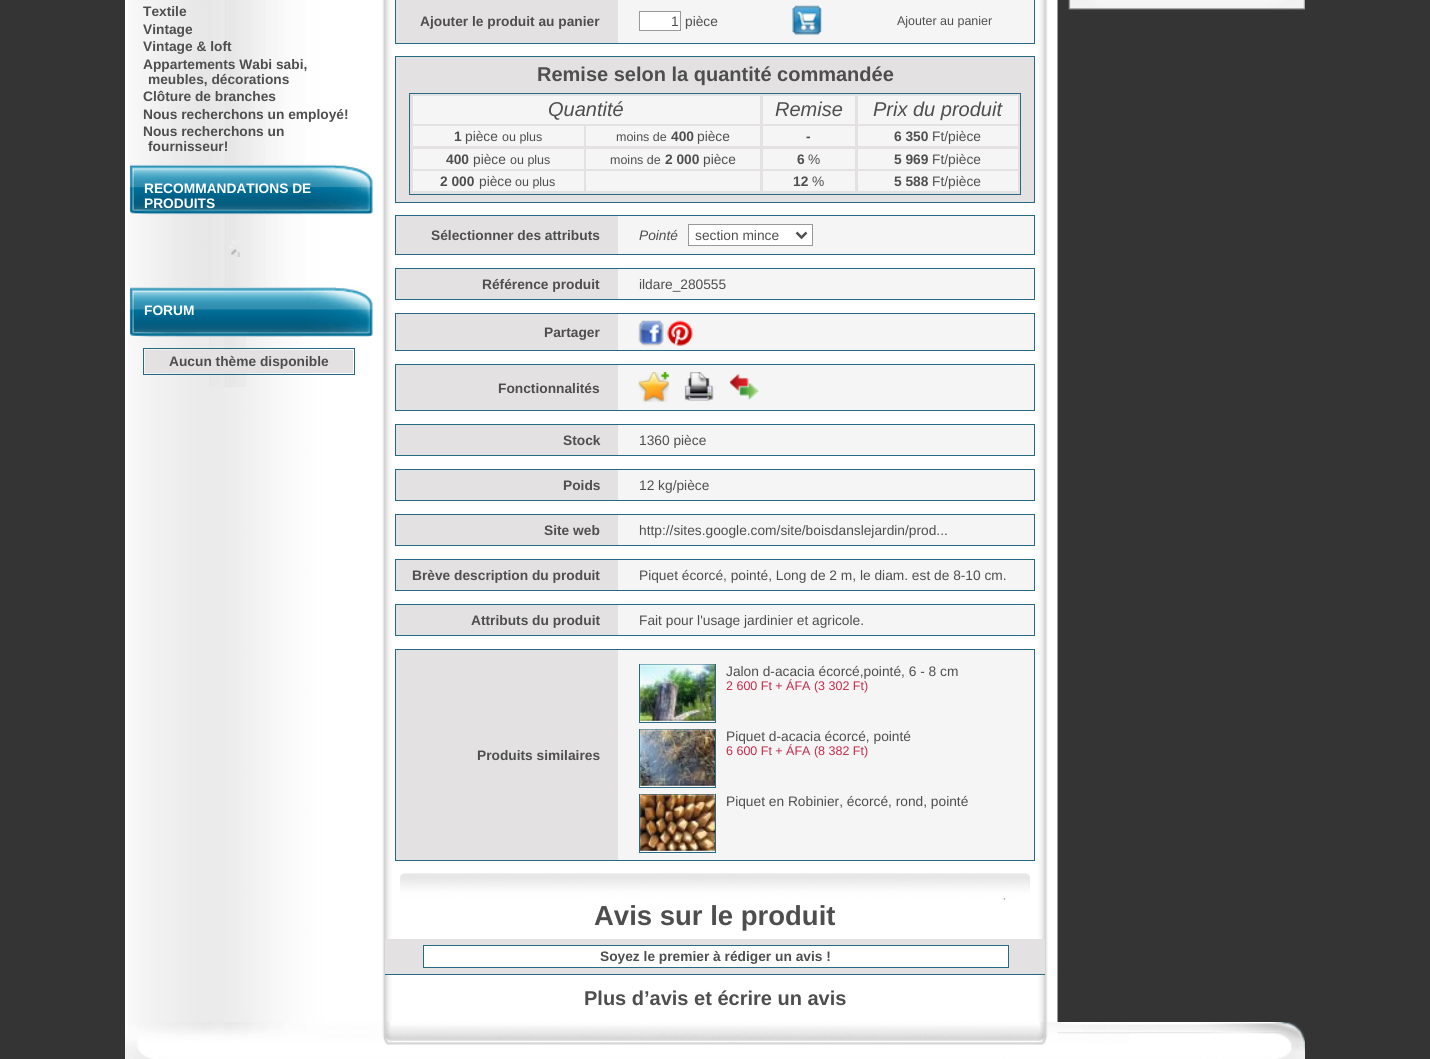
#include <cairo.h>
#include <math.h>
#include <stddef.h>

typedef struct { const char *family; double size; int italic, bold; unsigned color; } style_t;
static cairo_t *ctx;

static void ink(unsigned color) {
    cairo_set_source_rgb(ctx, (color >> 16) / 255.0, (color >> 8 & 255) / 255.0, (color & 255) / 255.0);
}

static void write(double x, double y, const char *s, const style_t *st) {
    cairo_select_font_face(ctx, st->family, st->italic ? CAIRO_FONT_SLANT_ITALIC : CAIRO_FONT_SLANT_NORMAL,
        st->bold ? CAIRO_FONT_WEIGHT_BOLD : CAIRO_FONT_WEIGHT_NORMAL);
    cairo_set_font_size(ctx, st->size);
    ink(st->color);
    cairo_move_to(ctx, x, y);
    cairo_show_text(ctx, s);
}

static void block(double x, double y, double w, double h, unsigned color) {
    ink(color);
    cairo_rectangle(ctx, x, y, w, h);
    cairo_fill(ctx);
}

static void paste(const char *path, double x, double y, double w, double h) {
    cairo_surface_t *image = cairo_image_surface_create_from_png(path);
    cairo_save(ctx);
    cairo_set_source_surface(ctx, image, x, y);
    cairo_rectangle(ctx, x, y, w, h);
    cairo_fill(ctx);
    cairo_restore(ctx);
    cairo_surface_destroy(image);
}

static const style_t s1 = {"Liberation Sans", 13.75, 0, 1, 0x4e4e4e};
static const style_t s2 = {"Liberation Sans", 13.75, 0, 1, 0xffffff};
static const style_t s3 = {"Liberation Sans", 13.75, 0, 0, 0x4e4e4e};
static const style_t s4 = {"Liberation Sans", 12.5, 0, 0, 0x4e4e4e};
static const style_t s5 = {"Liberation Sans", 20, 0, 1, 0x4e4e4e};
static const style_t s6 = {"Liberation Sans", 20, 1, 0, 0x4e4e4e};
static const style_t s7 = {"Liberation Sans", 13.75, 1, 0, 0x4e4e4e};
static const style_t s8 = {"Liberation Sans", 12.5, 0, 0, 0xc72a4b};
static const style_t s9 = {"Liberation Sans", 27.5, 0, 1, 0x4e4e4e};

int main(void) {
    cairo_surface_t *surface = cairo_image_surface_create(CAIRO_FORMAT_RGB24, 1430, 1059);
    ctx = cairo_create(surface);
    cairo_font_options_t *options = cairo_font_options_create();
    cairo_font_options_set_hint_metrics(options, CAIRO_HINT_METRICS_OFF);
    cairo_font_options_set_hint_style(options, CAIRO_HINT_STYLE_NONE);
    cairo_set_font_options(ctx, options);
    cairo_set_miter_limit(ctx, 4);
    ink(0x343434);
    cairo_paint(ctx);
    paste("pic1.png", 125, 0, 933, 1022);
    paste("pic2.png", 1068, 0, 237, 10);
    paste("pic4.png", 128, 164, 245, 51);
    paste("pic3.png", 130, 0, 207, 165);
    write(143, 16, "Textile", &s1);
    write(143, 34, "Vintage", &s1);
    write(143, 51, "Vintage & loft", &s1);
    write(143, 69, "Appartements Wabi sabi,", &s1);
    write(148, 84, "meubles, décorations", &s1);
    write(143, 101, "Clôture de branches", &s1);
    write(143, 119, "Nous recherchons un employé!", &s1);
    write(143, 136, "Nous recherchons un", &s1);
    write(148, 151, "fournisseur!", &s1);
    write(144, 193, "RECOMMANDATIONS DE", &s2);
    write(144, 208, "PRODUITS", &s2);
    paste("pic5.png", 140, 214, 230, 73);
    paste("pic6.png", 229, 240, 11, 17);
    paste("pic7.png", 125, 287, 248, 50);
    write(144, 315, "FORUM", &s2);
    paste("pic8.png", 209, 337, 37, 50);
    cairo_rectangle(ctx, 143.5, 348.5, 211, 26);
    ink(0x266982);
    cairo_set_line_width(ctx, 1);
    cairo_stroke(ctx);
    block(145, 350, 208, 23, 0xe3e1e1);
    write(169, 366, "Aucun thème disponible", &s1);
    cairo_rectangle(ctx, 395.5, -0.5, 639, 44);
    ink(0x266982);
    cairo_stroke(ctx);
    block(396, 0, 222, 43, 0xe3e1e1);
    write(420, 26, "Ajouter le produit au panier", &s1);
    block(618, 0, 416, 43, 0xf5f5f5);
    ink(0xffffff);
    cairo_rectangle(ctx, 639.5, 11.5, 41, 19);
    cairo_fill_preserve(ctx);
    ink(0x999999);
    cairo_stroke(ctx);
    write(671, 26, "1", &s3);
    write(685, 26, "pièce", &s3);
    paste("pic9.png", 792, 5, 30, 30);
    write(897, 25, "Ajouter au panier", &s4);
    ink(0xe3e1e1);
    cairo_rectangle(ctx, 395.5, 56.5, 639, 146);
    cairo_fill_preserve(ctx);
    ink(0x266982);
    cairo_stroke(ctx);
    write(537, 81, "Remise selon la quantité commandée", &s5);
    cairo_rectangle(ctx, 409.5, 93.5, 611, 101);
    ink(0x266982);
    cairo_stroke(ctx);
    block(413, 96, 347, 28, 0xf5f5f5);
    write(548, 116, "Quantité", &s6);
    block(763, 96, 92, 28, 0xf5f5f5);
    write(775, 116, "Remise", &s6);
    block(858, 96, 160, 28, 0xf5f5f5);
    write(873, 116, "Prix du produit", &s6);
    block(413, 126, 171, 20, 0xf5f5f5);
    write(454, 141, "1", &s1);
    write(465, 141, "pièce", &s3);
    write(502, 141, "ou plus", &s4);
    block(586, 126, 174, 20, 0xf5f5f5);
    write(616, 141, "moins de", &s4);
    write(671, 141, "400", &s1);
    write(697, 141, "pièce", &s3);
    block(763, 126, 92, 20, 0xf5f5f5);
    write(806, 141, "-", &s1);
    block(858, 126, 160, 20, 0xf5f5f5);
    write(894, 141, "6 350", &s1);
    write(932, 141, "Ft/pièce", &s3);
    block(413, 149, 171, 20, 0xf5f5f5);
    write(446, 164, "400", &s1);
    write(473, 164, "pièce", &s3);
    write(510, 164, "ou plus", &s4);
    block(586, 149, 174, 20, 0xf5f5f5);
    write(610, 164, "moins de", &s4);
    write(665, 164, "2 000", &s1);
    write(703, 164, "pièce", &s3);
    block(763, 149, 92, 20, 0xf5f5f5);
    write(797, 164, "6", &s1);
    write(808, 164, "%", &s3);
    block(858, 149, 160, 20, 0xf5f5f5);
    write(894, 164, "5 969", &s1);
    write(932, 164, "Ft/pièce", &s3);
    block(413, 171, 171, 20, 0xf5f5f5);
    write(440, 186, "2 000", &s1);
    write(479, 186, "pièce", &s3);
    write(515, 186, "ou plus", &s4);
    block(586, 171, 174, 20, 0xf5f5f5);
    block(763, 171, 92, 20, 0xf5f5f5);
    write(793, 186, "12", &s1);
    write(812, 186, "%", &s3);
    block(858, 171, 160, 20, 0xf5f5f5);
    write(894, 186, "5 588", &s1);
    write(932, 186, "Ft/pièce", &s3);
    cairo_rectangle(ctx, 395.5, 215.5, 639, 39);
    ink(0x266982);
    cairo_stroke(ctx);
    block(396, 216, 222, 38, 0xe3e1e1);
    write(431, 240, "Sélectionner des attributs", &s1);
    block(618, 216, 416, 38, 0xf5f5f5);
    write(639, 240, "Pointé", &s7);
    ink(0xffffff);
    cairo_rectangle(ctx, 688.5, 224.5, 124, 21);
    cairo_fill_preserve(ctx);
    ink(0x999999);
    cairo_stroke(ctx);
    cairo_new_path(ctx);
    cairo_move_to(ctx, 796.5, 232.5);
    cairo_line_to(ctx, 801.5, 237.5);
    cairo_line_to(ctx, 806.5, 232.5);
    ink(0x4e4e4e);
    cairo_set_line_width(ctx, 2.5);
    cairo_stroke(ctx);
    write(695, 240, "section mince", &s3);
    cairo_rectangle(ctx, 395.5, 268.5, 639, 31);
    ink(0x266982);
    cairo_set_line_width(ctx, 1);
    cairo_stroke(ctx);
    block(396, 269, 222, 30, 0xe3e1e1);
    write(482, 289, "Référence produit", &s1);
    block(618, 269, 416, 30, 0xf5f5f5);
    write(639, 289, "ildare_280555", &s3);
    cairo_rectangle(ctx, 395.5, 313.5, 639, 37);
    ink(0x266982);
    cairo_stroke(ctx);
    block(396, 314, 222, 36, 0xe3e1e1);
    write(544, 337, "Partager", &s1);
    block(618, 314, 416, 36, 0xf5f5f5);
    paste("pic10.png", 638, 320, 26, 26);
    paste("pic11.png", 667, 320, 26, 26);
    cairo_rectangle(ctx, 395.5, 364.5, 639, 46);
    ink(0x266982);
    cairo_stroke(ctx);
    block(396, 365, 222, 45, 0xe3e1e1);
    write(498, 393, "Fonctionnalités", &s1);
    block(618, 365, 416, 45, 0xf5f5f5);
    paste("pic12.png", 638, 372, 31, 30);
    paste("pic13.png", 684, 372, 30, 29);
    paste("pic14.png", 729, 374, 30, 26);
    cairo_rectangle(ctx, 395.5, 424.5, 639, 31);
    ink(0x266982);
    cairo_stroke(ctx);
    block(396, 425, 222, 30, 0xe3e1e1);
    write(563, 445, "Stock", &s1);
    block(618, 425, 416, 30, 0xf5f5f5);
    write(639, 445, "1360 pièce", &s3);
    cairo_rectangle(ctx, 395.5, 469.5, 639, 31);
    ink(0x266982);
    cairo_stroke(ctx);
    block(396, 470, 222, 30, 0xe3e1e1);
    write(563, 490, "Poids", &s1);
    block(618, 470, 416, 30, 0xf5f5f5);
    write(639, 490, "12 kg/pièce", &s3);
    cairo_rectangle(ctx, 395.5, 514.5, 639, 31);
    ink(0x266982);
    cairo_stroke(ctx);
    block(396, 515, 222, 30, 0xe3e1e1);
    write(544, 535, "Site web", &s1);
    block(618, 515, 416, 30, 0xf5f5f5);
    write(639, 535, "http://sites.google.com/site/boisdanslejardin/prod...", &s3);
    cairo_rectangle(ctx, 395.5, 559.5, 639, 31);
    ink(0x266982);
    cairo_stroke(ctx);
    block(396, 560, 222, 30, 0xe3e1e1);
    write(412, 580, "Brève description du produit", &s1);
    block(618, 560, 416, 30, 0xf5f5f5);
    write(639, 580, "Piquet écorcé, pointé, Long de 2 m, le diam. est de 8-10 cm.", &s3);
    cairo_rectangle(ctx, 395.5, 604.5, 639, 31);
    ink(0x266982);
    cairo_stroke(ctx);
    block(396, 605, 222, 30, 0xe3e1e1);
    write(471, 625, "Attributs du produit", &s1);
    block(618, 605, 416, 30, 0xf5f5f5);
    write(639, 625, "Fait pour l'usage jardinier et agricole.", &s3);
    cairo_rectangle(ctx, 395.5, 649.5, 639, 211);
    ink(0x266982);
    cairo_stroke(ctx);
    block(396, 650, 222, 210, 0xe3e1e1);
    write(477, 760, "Produits similaires", &s1);
    block(618, 650, 416, 210, 0xf5f5f5);
    cairo_rectangle(ctx, 639.5, 664.5, 76, 58);
    ink(0x266982);
    cairo_stroke(ctx);
    paste("pic15.png", 640, 664, 75, 57);
    write(726, 676, "Jalon d-acacia écorcé,pointé, 6 - 8 cm", &s3);
    write(726, 690, "2 600 Ft + ÁFA (3 302 Ft)", &s8);
    cairo_rectangle(ctx, 639.5, 729.5, 76, 58);
    ink(0x266982);
    cairo_stroke(ctx);
    paste("pic16.png", 640, 729, 75, 57);
    write(726, 741, "Piquet d-acacia écorcé, pointé", &s3);
    write(726, 755, "6 600 Ft + ÁFA (8 382 Ft)", &s8);
    cairo_rectangle(ctx, 639.5, 794.5, 76, 58);
    ink(0x266982);
    cairo_stroke(ctx);
    paste("pic17.png", 640, 794, 75, 57);
    write(726, 806, "Piquet en Robinier, écorcé, rond, pointé", &s3);
    paste("pic18.png", 400, 873, 630, 27);
    write(594, 925, "Avis sur le produit", &s9);
    block(385, 939, 660, 35, 0xe3e1e1);
    block(385, 974, 660, 1, 0x266982);
    ink(0xffffff);
    cairo_rectangle(ctx, 423.5, 945.5, 585, 22);
    cairo_fill_preserve(ctx);
    ink(0x266982);
    cairo_stroke(ctx);
    write(600, 961, "Soyez le premier à rédiger un avis !", &s1);
    write(584, 1005, "Plus d’avis et écrire un avis", &s5);
    paste("pic19.png", 125, 1022, 1180, 37);
    cairo_surface_write_to_png(surface, "screenshot.png");
    cairo_font_options_destroy(options);
    cairo_destroy(ctx);
    cairo_surface_destroy(surface);
    return 0;
}
